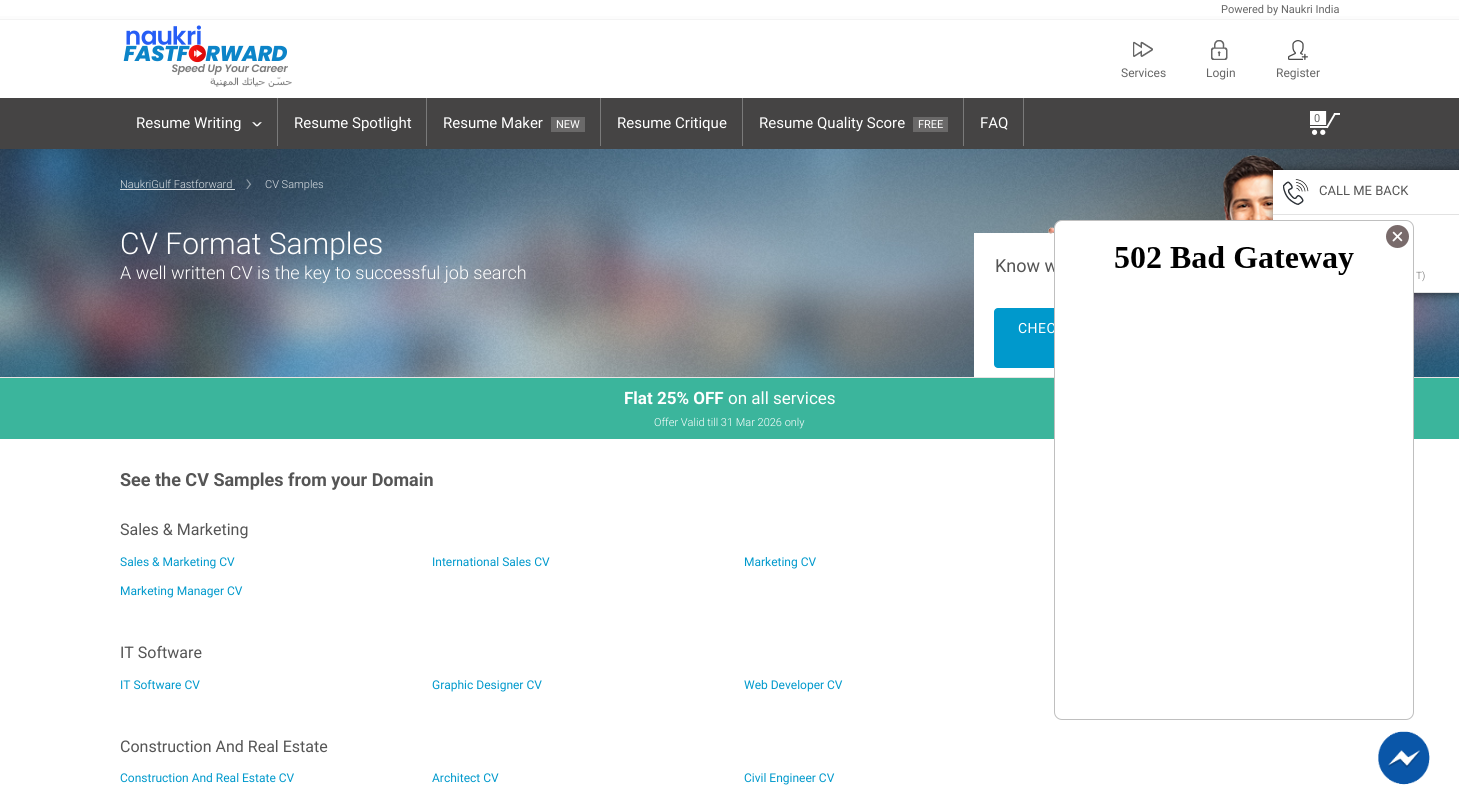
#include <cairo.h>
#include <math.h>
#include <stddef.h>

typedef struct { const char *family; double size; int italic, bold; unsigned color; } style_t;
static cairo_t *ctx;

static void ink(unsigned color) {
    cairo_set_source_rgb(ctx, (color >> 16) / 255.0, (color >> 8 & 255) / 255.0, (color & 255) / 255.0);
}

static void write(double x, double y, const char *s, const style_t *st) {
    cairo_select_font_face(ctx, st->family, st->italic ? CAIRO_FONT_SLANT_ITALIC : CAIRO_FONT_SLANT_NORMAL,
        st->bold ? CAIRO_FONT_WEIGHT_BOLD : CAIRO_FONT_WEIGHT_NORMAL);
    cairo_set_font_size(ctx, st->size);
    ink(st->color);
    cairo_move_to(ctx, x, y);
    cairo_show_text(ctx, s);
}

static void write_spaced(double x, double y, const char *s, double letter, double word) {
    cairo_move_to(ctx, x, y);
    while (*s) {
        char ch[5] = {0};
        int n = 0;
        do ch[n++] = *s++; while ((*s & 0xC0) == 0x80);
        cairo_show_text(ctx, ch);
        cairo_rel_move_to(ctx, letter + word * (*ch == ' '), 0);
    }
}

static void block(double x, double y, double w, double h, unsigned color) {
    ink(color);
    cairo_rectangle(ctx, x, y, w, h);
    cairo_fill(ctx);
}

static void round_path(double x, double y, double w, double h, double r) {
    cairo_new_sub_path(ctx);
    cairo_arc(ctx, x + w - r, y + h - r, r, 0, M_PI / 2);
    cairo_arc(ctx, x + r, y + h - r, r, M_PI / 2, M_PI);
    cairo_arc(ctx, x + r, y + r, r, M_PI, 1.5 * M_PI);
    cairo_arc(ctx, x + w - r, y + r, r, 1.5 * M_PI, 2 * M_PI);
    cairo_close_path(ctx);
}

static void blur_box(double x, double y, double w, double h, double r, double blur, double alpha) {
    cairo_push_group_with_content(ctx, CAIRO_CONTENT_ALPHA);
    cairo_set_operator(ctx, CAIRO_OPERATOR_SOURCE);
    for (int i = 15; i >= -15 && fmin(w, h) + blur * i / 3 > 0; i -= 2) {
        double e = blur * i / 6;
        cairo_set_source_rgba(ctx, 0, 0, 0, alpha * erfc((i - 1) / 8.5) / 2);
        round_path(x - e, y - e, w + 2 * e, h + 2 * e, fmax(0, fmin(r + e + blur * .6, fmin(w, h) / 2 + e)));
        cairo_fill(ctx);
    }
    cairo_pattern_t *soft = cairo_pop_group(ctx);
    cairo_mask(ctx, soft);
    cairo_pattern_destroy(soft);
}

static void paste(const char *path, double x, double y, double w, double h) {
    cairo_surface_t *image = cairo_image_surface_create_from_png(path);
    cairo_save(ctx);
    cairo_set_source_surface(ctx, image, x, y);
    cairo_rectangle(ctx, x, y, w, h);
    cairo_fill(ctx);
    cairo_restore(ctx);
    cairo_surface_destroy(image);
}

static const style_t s1 = {"Roboto", 11, 0, 0, 0x666666};
static const style_t s2 = {"Roboto", 12, 0, 0, 0x666666};
static const style_t s3 = {"Roboto", 15, 0, 0, 0xffffff};
static const style_t s4 = {"Roboto", 11, 0, 0, 0xffffff};
static const style_t s5 = {"Roboto Light", 11, 0, 0, 0xdae0e4};
static const style_t s6 = {"Roboto Light", 25, 0, 0, 0x919ea9};
static const style_t s7 = {"Roboto Light", 30, 0, 0, 0xffffff};
static const style_t s8 = {"Roboto Light", 18, 0, 0, 0xffffff};
static const style_t s9 = {"Roboto", 18, 0, 0, 0x555555};
static const style_t s10 = {"Roboto", 13, 0, 0, 0x555555};
static const style_t s11 = {"Roboto Light", 10, 0, 0, 0x666666};
static const style_t s12 = {"Roboto", 17, 0, 1, 0xffffff};
static const style_t s13 = {"Roboto", 17, 0, 0, 0xffffff};
static const style_t s14 = {"Roboto Light", 11, 0, 0, 0xffffff};
static const style_t s15 = {"Roboto", 18, 0, 1, 0x555555};
static const style_t s16 = {"Roboto", 16, 0, 0, 0x555555};
static const style_t s17 = {"Roboto", 12, 0, 0, 0x0099cc};

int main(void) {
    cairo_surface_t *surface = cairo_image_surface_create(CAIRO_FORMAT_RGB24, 1459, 803);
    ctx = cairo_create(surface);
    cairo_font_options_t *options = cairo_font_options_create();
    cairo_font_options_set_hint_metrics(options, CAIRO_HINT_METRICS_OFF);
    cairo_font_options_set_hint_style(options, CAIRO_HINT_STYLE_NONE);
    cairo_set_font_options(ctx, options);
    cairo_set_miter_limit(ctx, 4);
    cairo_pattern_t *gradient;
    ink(0xffffff);
    cairo_paint(ctx);
    gradient = cairo_pattern_create_linear(730, 0, 730, 19);
    cairo_pattern_add_color_stop_rgba(gradient, 0, 1, 1, 1, 1);
    cairo_pattern_add_color_stop_rgba(gradient, 1, 0.988, 0.988, 0.988, 1);
    cairo_set_source(ctx, gradient);
    cairo_pattern_destroy(gradient);
    cairo_rectangle(ctx, 0, 16, 1459, 3);
    cairo_fill(ctx);
    block(0, 19, 1459, 1, 0xf3f3f3);
    write(1221, 13, "Powered by Naukri India", &s1);
    paste("pic1.png", 123, 25, 169, 62);
    paste("pic2.png", 1133, 41, 20, 16);
    write(1121, 77, "Services", &s2);
    paste("pic3.png", 1211, 40, 17, 20);
    write(1206, 77, "Login", &s2);
    paste("pic4.png", 1288, 40, 20, 20);
    write(1276, 77, "Register", &s2);
    block(0, 98, 1459, 51, 0x454444);
    block(277, 98, 1, 49, 0x7a7a7a);
    block(277, 146, 1, 1, 0x454444);
    write(136, 128, "Resume Writing", &s3);
    paste("pic5.png", 252, 122, 10, 5);
    block(426, 98, 1, 49, 0x7a7a7a);
    block(426, 146, 1, 1, 0x454444);
    write(294, 128, "Resume Spotlight", &s3);
    block(600, 98, 1, 49, 0x7a7a7a);
    block(600, 146, 1, 1, 0x454444);
    write(443, 128, "Resume Maker", &s3);
    block(551, 117, 34, 15, 0x6a6969);
    write(556, 128, "NEW", &s4);
    block(742, 98, 1, 49, 0x7a7a7a);
    block(742, 146, 1, 1, 0x454444);
    write(617, 128, "Resume Critique", &s3);
    block(963, 98, 1, 49, 0x7a7a7a);
    block(963, 146, 1, 1, 0x454444);
    write(759, 128, "Resume Quality Score", &s3);
    block(913, 117, 35, 15, 0x6a6969);
    write(918, 128, "FREE", &s4);
    block(1023, 98, 1, 49, 0x7a7a7a);
    block(1023, 146, 1, 1, 0x454444);
    write(980, 128, "FAQ", &s3);
    paste("pic6.png", 1310, 111, 30, 24);
    write(1314, 122, "0", &s1);
    paste("pic7.png", 0, 149, 1459, 228);
    block(0, 377, 1459, 1, 0xe7e4e4);
    write(120, 188, "NaukriGulf Fastforward", &s5);
    block(120, 189, 115, 1, 0xdae0e4);
    write(245, 191, "›", &s6);
    write(265, 188, "CV Samples", &s5);
    write(120, 254, "CV Format Samples", &s7);
    write(120, 279, "A well written CV is the key to successful job search", &s8);
    paste("pic8.png", 974, 155, 311, 222);
    write(995, 272, "Know w", &s9);
    ink(0x0099cc);
    round_path(994, 308, 211, 60, 4);
    cairo_fill(ctx);
    cairo_set_font_size(ctx, 14);
    ink(0xffffff);
    write_spaced(1018, 333, "CHEC", 0.5, 0);
    ink(0x000000);
    blur_box(1274, 171, 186, 123, 0, 4.5, 0.6);
    block(1273, 170, 186, 122, 0xffffff);
    block(1273, 214, 186, 1, 0xe2e2e2);
    paste("pic9.png", 1283, 179, 26, 26);
    write(1319, 195, "CALL ME BACK", &s10);
    block(1414, 292, 45, 1, 0xe2e2e2);
    write(1416, 279, "T)", &s11);
    block(0, 378, 1459, 61, 0x3bb59c);
    write(624, 404, "Flat 25% OFF", &s12);
    write(728, 404, "on all services", &s13);
    write(654, 426, "Offer Valid till 31 Mar 2026 only", &s14);
    round_path(1054.5, 220.5, 359, 499, 7.5);
    cairo_fill_preserve(ctx);
    ink(0xbfbfbf);
    cairo_set_line_width(ctx, 1);
    cairo_stroke(ctx);
    paste("pic10.png", 1386, 225, 23, 23);
    paste("pic11.png", 1115, 246, 239, 29);
    write(120, 486, "See the CV Samples from your Domain", &s15);
    write(120, 535, "Sales & Marketing", &s16);
    write(120, 566, "Sales & Marketing CV", &s17);
    write(432, 566, "International Sales CV", &s17);
    write(744, 566, "Marketing CV", &s17);
    write(120, 595, "Marketing Manager CV", &s17);
    write(120, 658, "IT Software", &s16);
    write(120, 689, "IT Software CV", &s17);
    write(432, 689, "Graphic Designer CV", &s17);
    write(744, 689, "Web Developer CV", &s17);
    write(120, 752, "Construction And Real Estate", &s16);
    write(120, 782, "Construction And Real Estate CV", &s17);
    write(432, 782, "Architect CV", &s17);
    write(744, 782, "Civil Engineer CV", &s17);
    paste("pic12.png", 1378, 731, 52, 54);
    cairo_surface_write_to_png(surface, "screenshot.png");
    cairo_font_options_destroy(options);
    cairo_destroy(ctx);
    cairo_surface_destroy(surface);
    return 0;
}
